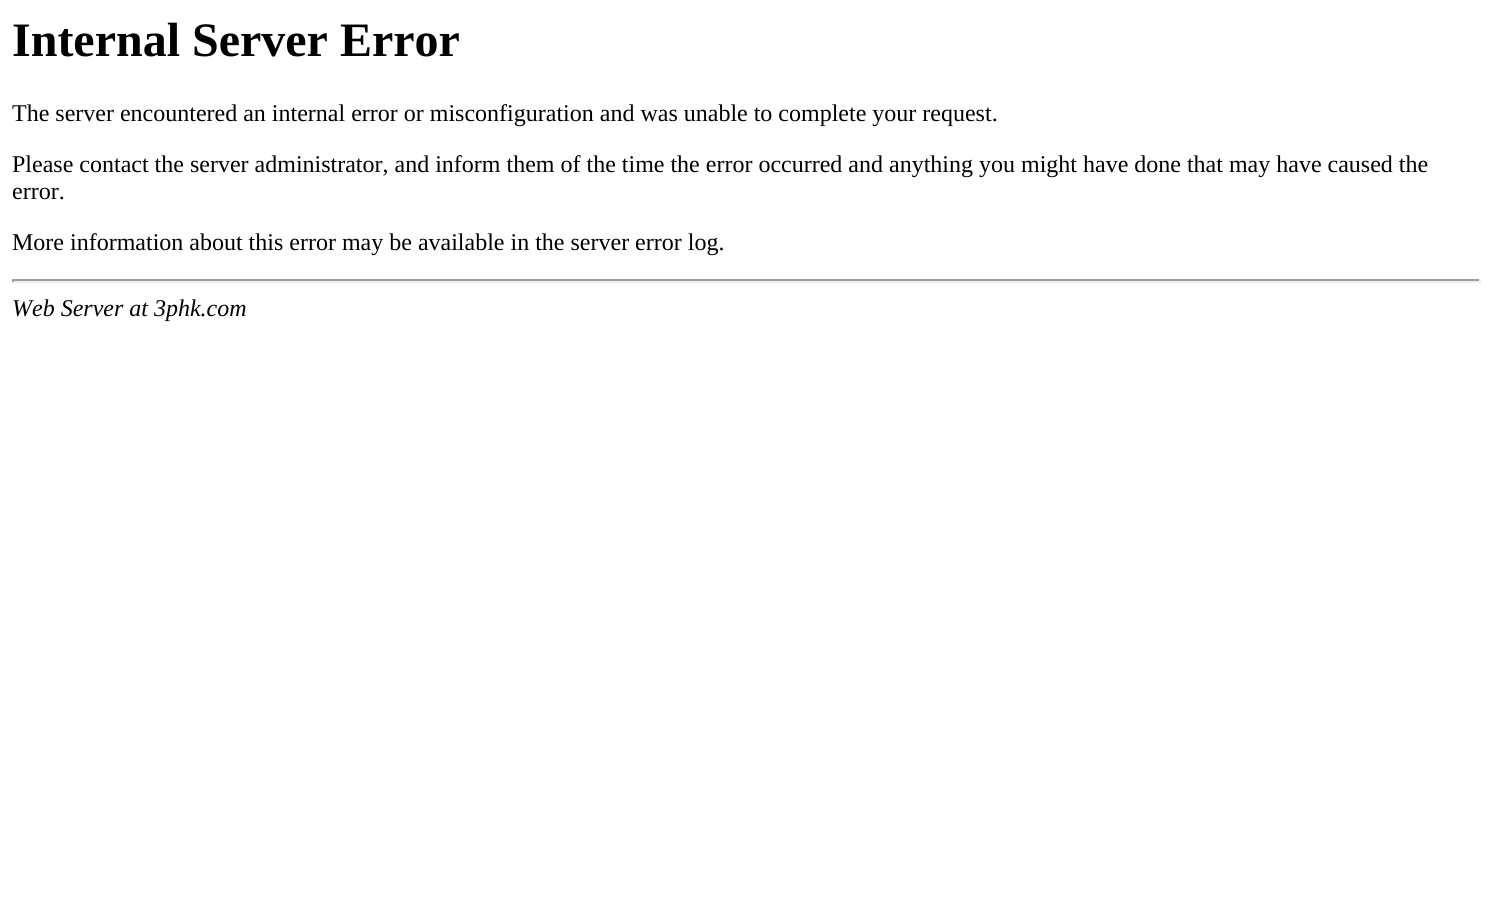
#include <cairo.h>
#include <math.h>
#include <stddef.h>

typedef struct { const char *family; double size; int italic, bold; unsigned color; } style_t;
static cairo_t *ctx;

static void ink(unsigned color) {
    cairo_set_source_rgb(ctx, (color >> 16) / 255.0, (color >> 8 & 255) / 255.0, (color & 255) / 255.0);
}

static void write(double x, double y, const char *s, const style_t *st) {
    cairo_select_font_face(ctx, st->family, st->italic ? CAIRO_FONT_SLANT_ITALIC : CAIRO_FONT_SLANT_NORMAL,
        st->bold ? CAIRO_FONT_WEIGHT_BOLD : CAIRO_FONT_WEIGHT_NORMAL);
    cairo_set_font_size(ctx, st->size);
    ink(st->color);
    cairo_move_to(ctx, x, y);
    cairo_show_text(ctx, s);
}

static void block(double x, double y, double w, double h, unsigned color) {
    ink(color);
    cairo_rectangle(ctx, x, y, w, h);
    cairo_fill(ctx);
}

static const style_t s1 = {"Liberation Serif", 48, 0, 1, 0x000000};
static const style_t s2 = {"Liberation Serif", 24, 0, 0, 0x000000};
static const style_t s3 = {"Liberation Serif", 24, 1, 0, 0x000000};

int main(void) {
    cairo_surface_t *surface = cairo_image_surface_create(CAIRO_FORMAT_RGB24, 1492, 913);
    ctx = cairo_create(surface);
    cairo_font_options_t *options = cairo_font_options_create();
    cairo_font_options_set_hint_metrics(options, CAIRO_HINT_METRICS_OFF);
    cairo_font_options_set_hint_style(options, CAIRO_HINT_STYLE_NONE);
    cairo_set_font_options(ctx, options);
    cairo_set_miter_limit(ctx, 4);
    ink(0xffffff);
    cairo_paint(ctx);
    write(12, 56, "Internal Server Error", &s1);
    write(12, 121, "The server encountered an internal error or misconfiguration and was unable to complete your request.", &s2);
    write(12, 172, "Please contact the server administrator, and inform them of the time the error occurred and anything you might have done that may have caused the", &s2);
    write(12, 199, "error.", &s2);
    write(12, 250, "More information about this error may be available in the server error log.", &s2);
    block(12, 279, 1469, 2, 0x9f9f9f);
    block(1479, 279, 2, 3, 0xeeeeee);
    block(12, 281, 1469, 2, 0xeeeeee);
    block(12, 279, 2, 3, 0x9f9f9f);
    write(12, 316, "Web Server at 3phk.com", &s3);
    cairo_surface_write_to_png(surface, "screenshot.png");
    cairo_font_options_destroy(options);
    cairo_destroy(ctx);
    cairo_surface_destroy(surface);
    return 0;
}
